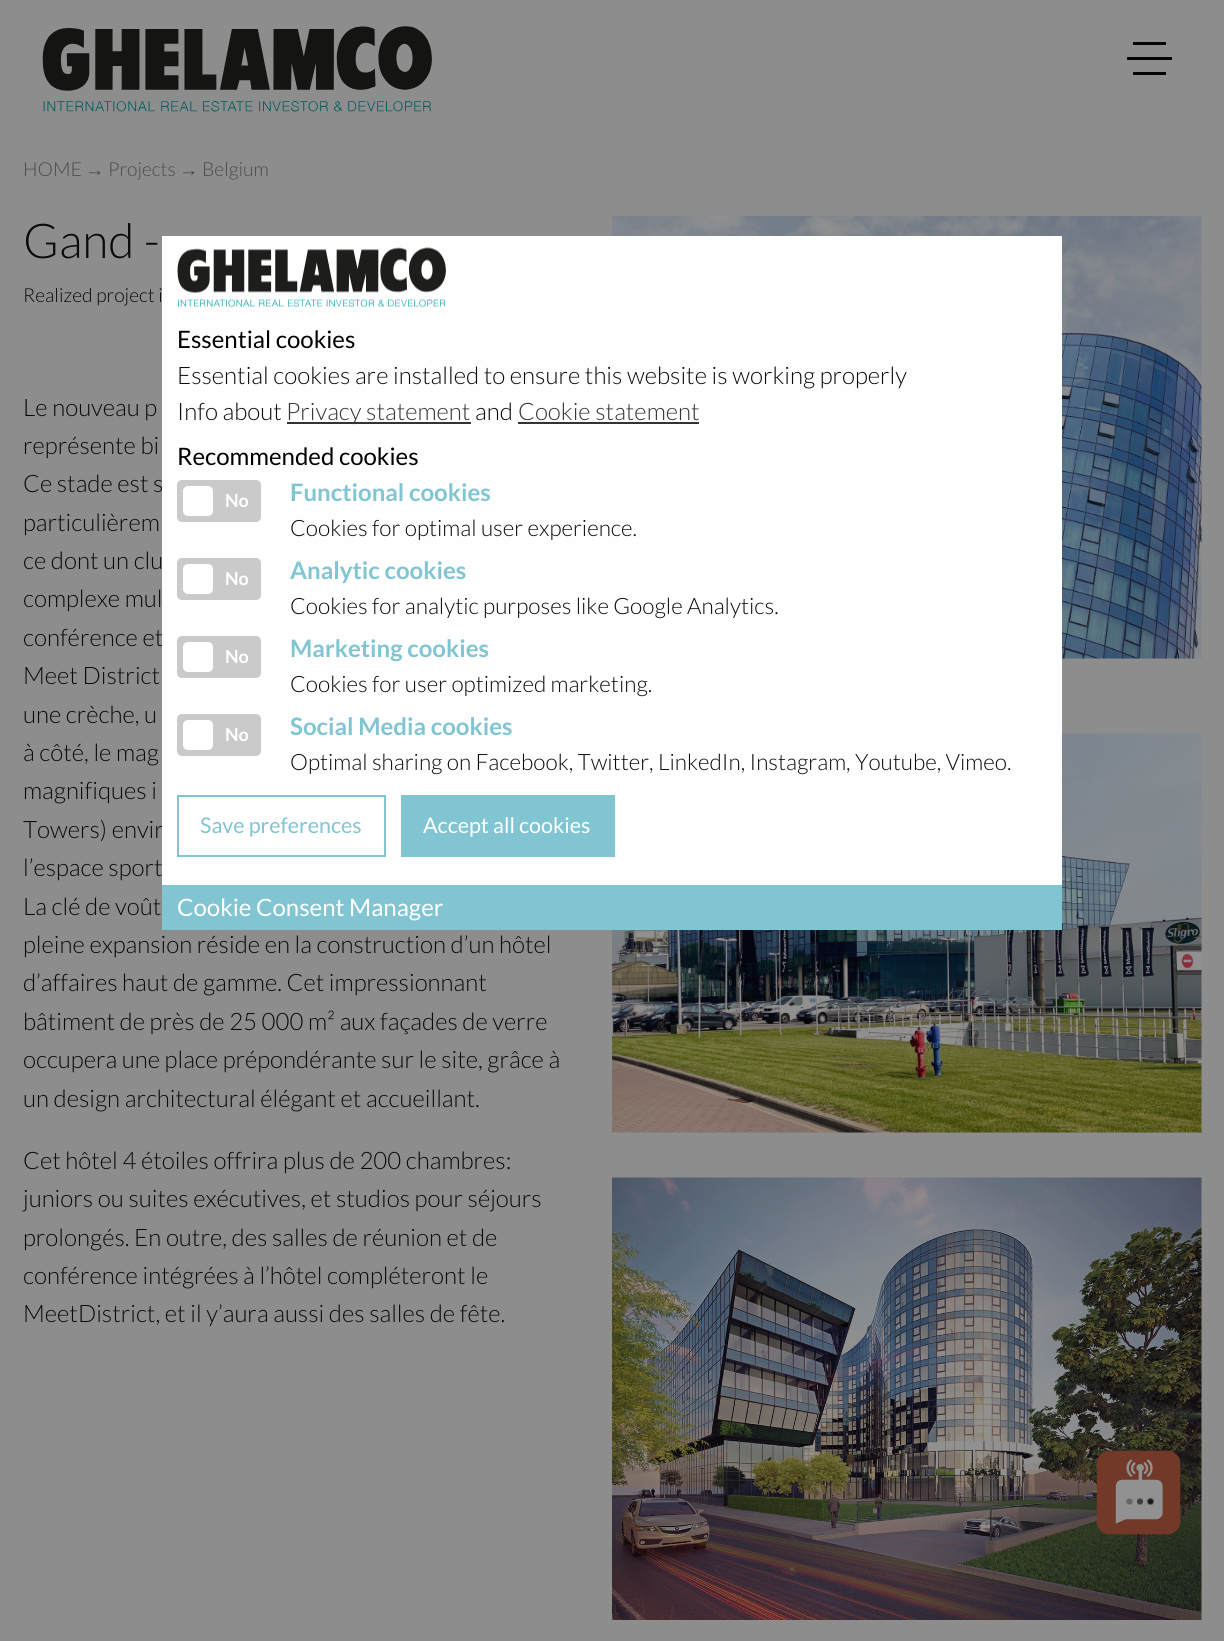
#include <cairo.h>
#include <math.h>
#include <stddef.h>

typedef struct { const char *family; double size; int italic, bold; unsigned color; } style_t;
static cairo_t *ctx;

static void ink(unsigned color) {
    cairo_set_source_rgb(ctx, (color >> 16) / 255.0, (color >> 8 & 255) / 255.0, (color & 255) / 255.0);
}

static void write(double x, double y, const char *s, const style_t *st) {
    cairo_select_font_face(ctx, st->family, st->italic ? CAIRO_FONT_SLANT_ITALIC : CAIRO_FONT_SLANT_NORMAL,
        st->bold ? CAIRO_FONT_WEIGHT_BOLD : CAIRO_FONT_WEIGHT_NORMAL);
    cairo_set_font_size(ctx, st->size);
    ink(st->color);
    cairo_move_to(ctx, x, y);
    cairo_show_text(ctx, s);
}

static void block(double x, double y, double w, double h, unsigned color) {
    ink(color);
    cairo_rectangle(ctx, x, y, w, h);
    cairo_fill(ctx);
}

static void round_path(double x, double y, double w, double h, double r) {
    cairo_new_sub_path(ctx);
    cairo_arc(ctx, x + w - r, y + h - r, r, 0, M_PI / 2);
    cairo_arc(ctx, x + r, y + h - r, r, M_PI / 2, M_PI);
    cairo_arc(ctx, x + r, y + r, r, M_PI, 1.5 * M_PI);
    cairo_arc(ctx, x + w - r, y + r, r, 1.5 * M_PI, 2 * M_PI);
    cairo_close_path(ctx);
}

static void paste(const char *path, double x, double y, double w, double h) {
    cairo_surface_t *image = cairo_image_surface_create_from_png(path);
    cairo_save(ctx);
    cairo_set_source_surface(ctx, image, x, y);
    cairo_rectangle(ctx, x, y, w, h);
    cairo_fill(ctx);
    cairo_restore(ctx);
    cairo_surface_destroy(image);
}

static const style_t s1 = {"Lato Light", 19.25, 0, 0, 0x4b4b4b};
static const style_t s2 = {"Liberation Sans", 19.25, 0, 0, 0x4b4b4b};
static const style_t s3 = {"Lato Light", 48, 0, 0, 0x0a0a0a};
static const style_t s4 = {"Lato Light", 19.25, 0, 0, 0x0a0a0a};
static const style_t s5 = {"Lato Light", 24, 0, 0, 0x0a0a0a};
static const style_t s6 = {"Lato", 24, 0, 0, 0x000000};
static const style_t s7 = {"Lato Light", 24, 0, 0, 0x333333};
static const style_t s8 = {"Lato", 18, 0, 1, 0xffffff};
static const style_t s9 = {"Lato", 24, 0, 1, 0x81c5d2};
static const style_t s10 = {"Lato Light", 22.5, 0, 0, 0x0a0a0a};
static const style_t s11 = {"Lato", 21.5, 0, 0, 0x81c5d2};
static const style_t s12 = {"Lato", 21.5, 0, 0, 0xffffff};
static const style_t s13 = {"Lato", 24, 0, 0, 0xffffff};

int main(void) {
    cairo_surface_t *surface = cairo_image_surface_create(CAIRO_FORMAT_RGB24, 1224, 1641);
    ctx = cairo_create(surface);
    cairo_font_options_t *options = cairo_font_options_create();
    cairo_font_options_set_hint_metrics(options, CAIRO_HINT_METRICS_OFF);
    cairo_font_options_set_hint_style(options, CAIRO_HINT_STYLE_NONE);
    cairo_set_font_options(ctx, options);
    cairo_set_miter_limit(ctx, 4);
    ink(0x8d8d8d);
    cairo_paint(ctx);
    paste("pic1.png", 42, 26, 390, 86);
    block(1127, 57, 45, 3, 0x050505);
    block(1133, 42, 33, 3, 0x050505);
    block(1133, 72, 33, 3, 0x050505);
    write(23, 176, "HOME", &s1);
    write(85, 176, "→", &s2);
    write(108, 176, "Projects", &s1);
    write(179, 176, "→", &s2);
    write(202, 176, "Belgium", &s1);
    write(23, 258, "Gand -", &s3);
    write(23, 302, "Realized project i", &s4);
    paste("pic2.png", 612, 216, 590, 443);
    write(23, 416, "Le nouveau p", &s5);
    write(23, 454, "représente bi", &s5);
    write(23, 492, "Ce stade est s", &s5);
    write(23, 531, "particulièrem", &s5);
    write(23, 569, "ce dont un clu", &s5);
    write(23, 607, "complexe mul", &s5);
    write(23, 646, "conférence et", &s5);
    write(23, 684, "Meet District", &s5);
    write(23, 723, "une crèche, u", &s5);
    write(23, 761, "à côté, le mag", &s5);
    write(23, 799, "magnifiques i", &s5);
    write(23, 838, "Towers) envir", &s5);
    write(23, 876, "l’espace sport", &s5);
    write(23, 915, "La clé de voût", &s5);
    write(23, 953, "pleine expansion réside en la construction d’un hôtel", &s5);
    write(23, 991, "d’affaires haut de gamme. Cet impressionnant", &s5);
    write(23, 1030, "bâtiment de près de 25 000 m² aux façades de verre", &s5);
    write(23, 1068, "occupera une place prépondérante sur le site, grâce à", &s5);
    write(23, 1107, "un design architectural élégant et accueillant.", &s5);
    write(23, 1169, "Cet hôtel 4 étoiles offrira plus de 200 chambres:", &s5);
    write(23, 1207, "juniors ou suites exécutives, et studios pour séjours", &s5);
    write(23, 1246, "prolongés. En outre, des salles de réunion et de", &s5);
    write(23, 1284, "conférence intégrées à l’hôtel compléteront le", &s5);
    write(23, 1322, "MeetDistrict, et il y’aura aussi des salles de fête.", &s5);
    paste("pic3.png", 612, 733, 590, 400);
    paste("pic4.png", 612, 1177, 590, 443);
    block(162, 236, 900, 649, 0xfefefe);
    paste("pic5.png", 177, 247, 269, 61);
    write(177, 348, "Essential cookies", &s6);
    write(177, 384, "Essential cookies are installed to ensure this website is working properly", &s5);
    write(177, 420, "Info about", &s5);
    block(287, 422, 184, 2, 0x333333);
    write(286, 420, "Privacy statement", &s7);
    write(475, 420, "and", &s5);
    write(518, 420, "Cookie statement", &s7);
    block(518, 422, 181, 2, 0x333333);
    write(177, 465, "Recommended cookies", &s6);
    ink(0xcacaca);
    round_path(177, 480, 84, 42, 5);
    cairo_fill(ctx);
    ink(0xfefefe);
    round_path(183, 486, 30, 30, 5);
    cairo_fill(ctx);
    write(225, 507, "No", &s8);
    write(290, 501, "Functional cookies", &s9);
    write(290, 536, "Cookies for optimal user experience.", &s10);
    ink(0xcacaca);
    round_path(177, 558, 84, 42, 5);
    cairo_fill(ctx);
    ink(0xfefefe);
    round_path(183, 564, 30, 30, 5);
    cairo_fill(ctx);
    write(225, 585, "No", &s8);
    write(290, 579, "Analytic cookies", &s9);
    write(290, 614, "Cookies for analytic purposes like Google Analytics.", &s10);
    ink(0xcacaca);
    round_path(177, 636, 84, 42, 5);
    cairo_fill(ctx);
    ink(0xfefefe);
    round_path(183, 642, 30, 30, 5);
    cairo_fill(ctx);
    write(225, 663, "No", &s8);
    write(290, 657, "Marketing cookies", &s9);
    write(290, 692, "Cookies for user optimized marketing.", &s10);
    ink(0xcacaca);
    round_path(177, 714, 84, 42, 5);
    cairo_fill(ctx);
    ink(0xfefefe);
    round_path(183, 720, 30, 30, 5);
    cairo_fill(ctx);
    write(225, 741, "No", &s8);
    write(290, 735, "Social Media cookies", &s9);
    write(290, 770, "Optimal sharing on Facebook, Twitter, LinkedIn, Instagram, Youtube, Vimeo.", &s10);
    cairo_rectangle(ctx, 178, 796, 207, 60);
    ink(0x81c5d2);
    cairo_stroke(ctx);
    write(200, 833, "Save preferences", &s11);
    block(401, 795, 214, 62, 0x81c5d2);
    write(423, 833, "Accept all cookies", &s12);
    block(162, 885, 900, 45, 0x81c5d2);
    write(177, 916, "Cookie Consent Manager", &s13);
    paste("pic6.png", 1096, 1450, 85, 85);
    cairo_surface_write_to_png(surface, "screenshot.png");
    cairo_font_options_destroy(options);
    cairo_destroy(ctx);
    cairo_surface_destroy(surface);
    return 0;
}
